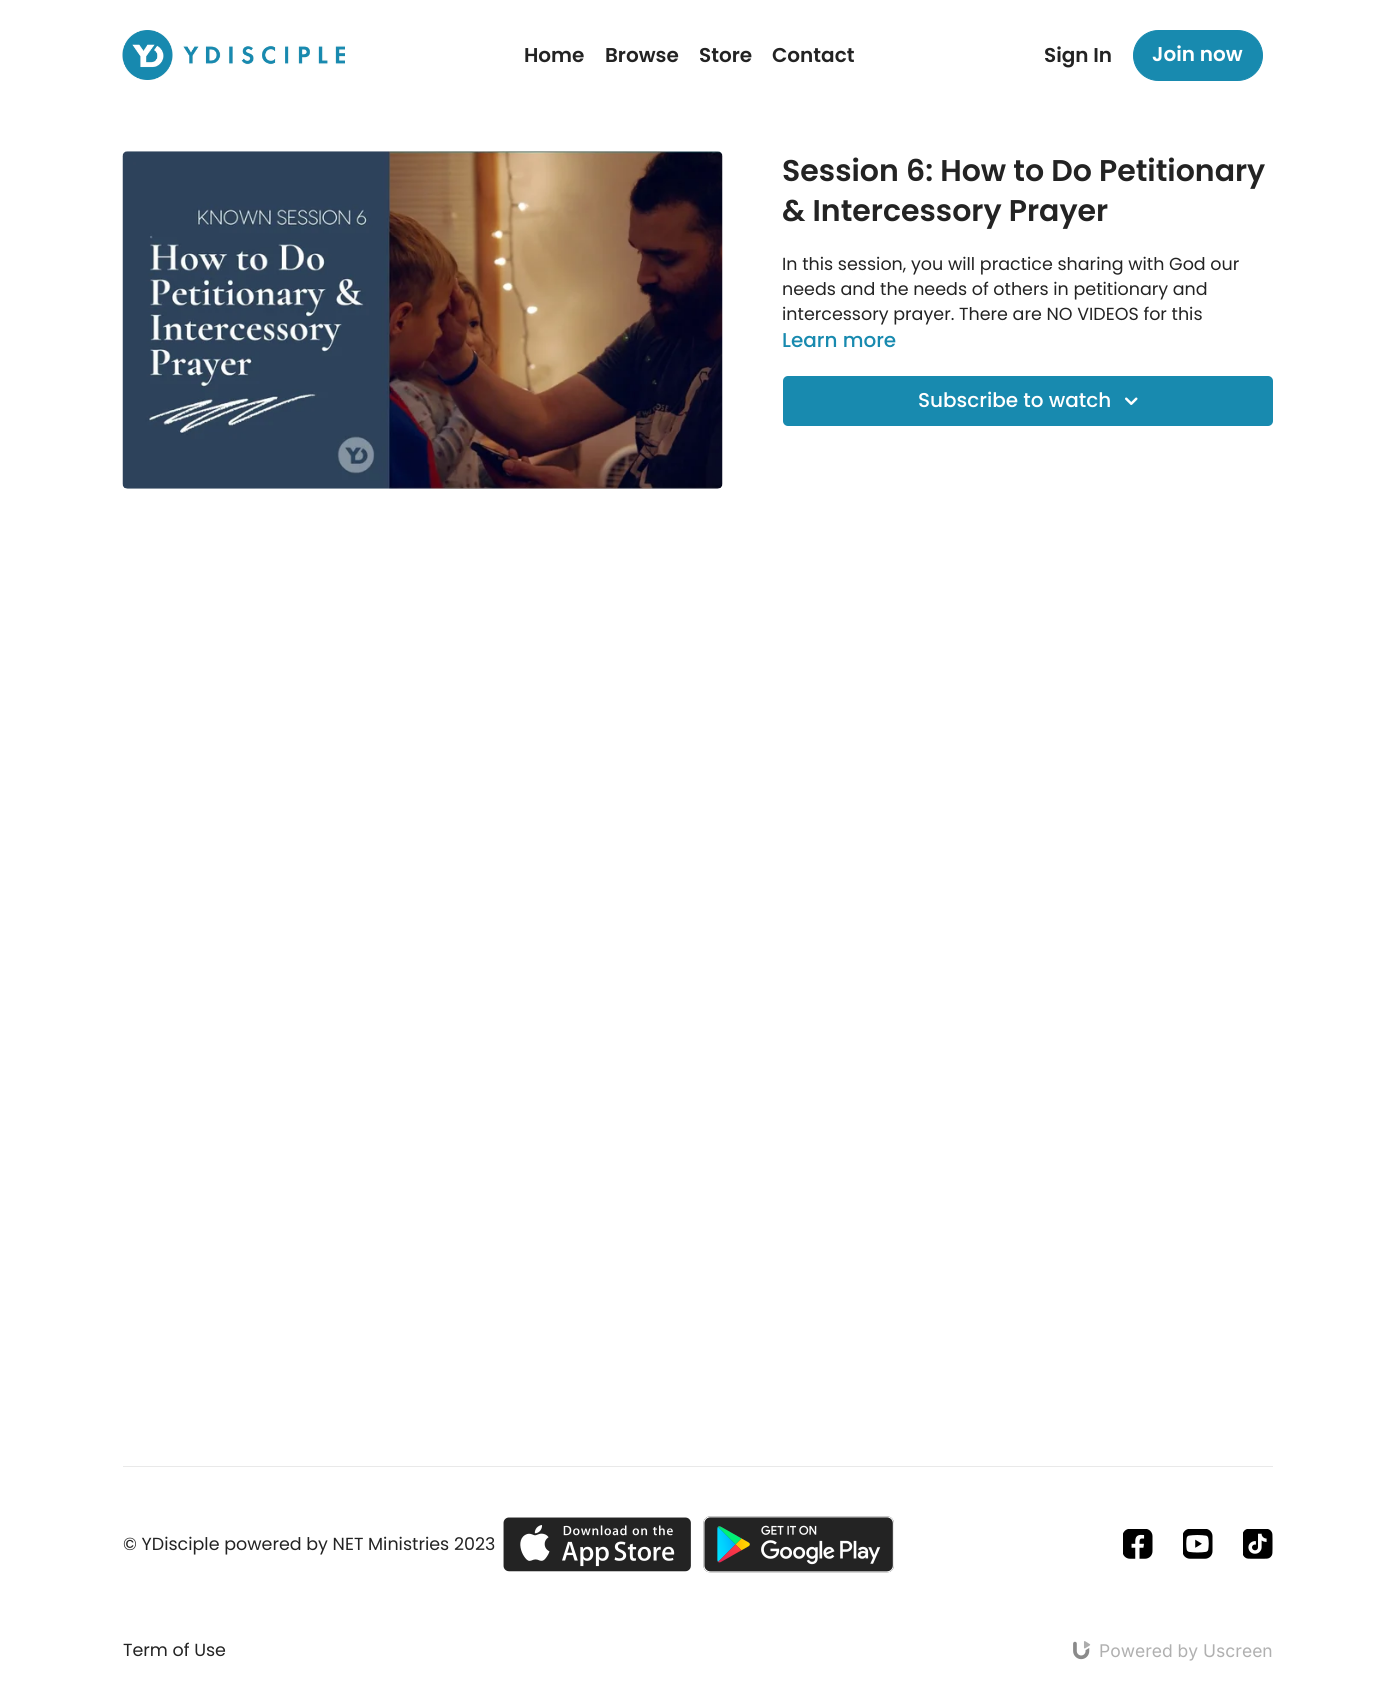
#include <cairo.h>
#include <math.h>
#include <stddef.h>

typedef struct { const char *family; double size; int italic, bold; unsigned color; } style_t;
static cairo_t *ctx;

static void ink(unsigned color) {
    cairo_set_source_rgb(ctx, (color >> 16) / 255.0, (color >> 8 & 255) / 255.0, (color & 255) / 255.0);
}

static void write(double x, double y, const char *s, const style_t *st) {
    cairo_select_font_face(ctx, st->family, st->italic ? CAIRO_FONT_SLANT_ITALIC : CAIRO_FONT_SLANT_NORMAL,
        st->bold ? CAIRO_FONT_WEIGHT_BOLD : CAIRO_FONT_WEIGHT_NORMAL);
    cairo_set_font_size(ctx, st->size);
    ink(st->color);
    cairo_move_to(ctx, x, y);
    cairo_show_text(ctx, s);
}

static void block(double x, double y, double w, double h, unsigned color) {
    ink(color);
    cairo_rectangle(ctx, x, y, w, h);
    cairo_fill(ctx);
}

static void round_path(double x, double y, double w, double h, double r) {
    cairo_new_sub_path(ctx);
    cairo_arc(ctx, x + w - r, y + h - r, r, 0, M_PI / 2);
    cairo_arc(ctx, x + r, y + h - r, r, M_PI / 2, M_PI);
    cairo_arc(ctx, x + r, y + r, r, M_PI, 1.5 * M_PI);
    cairo_arc(ctx, x + w - r, y + r, r, 1.5 * M_PI, 2 * M_PI);
    cairo_close_path(ctx);
}

static void paste(const char *path, double x, double y, double w, double h) {
    cairo_surface_t *image = cairo_image_surface_create_from_png(path);
    cairo_save(ctx);
    cairo_set_source_surface(ctx, image, x, y);
    cairo_rectangle(ctx, x, y, w, h);
    cairo_fill(ctx);
    cairo_restore(ctx);
    cairo_surface_destroy(image);
}

static const style_t s1 = {"Poppins SemiBold", 20, 0, 0, 0x232323};
static const style_t s2 = {"Poppins SemiBold", 20, 0, 0, 0xffffff};
static const style_t s3 = {"Poppins SemiBold", 30, 0, 0, 0x232323};
static const style_t s4 = {"Poppins", 17.5, 0, 0, 0x232323};
static const style_t s5 = {"Poppins Medium", 20, 0, 0, 0x188aaf};
static const style_t s6 = {"Poppins Medium", 20, 0, 0, 0xffffff};
static const style_t s7 = {"Inter", 17.5, 0, 0, 0xb0b0b0};

int main(void) {
    cairo_surface_t *surface = cairo_image_surface_create(CAIRO_FORMAT_RGB24, 1395, 1704);
    ctx = cairo_create(surface);
    cairo_font_options_t *options = cairo_font_options_create();
    cairo_font_options_set_hint_metrics(options, CAIRO_HINT_METRICS_OFF);
    cairo_font_options_set_hint_style(options, CAIRO_HINT_STYLE_NONE);
    cairo_set_font_options(ctx, options);
    cairo_set_miter_limit(ctx, 4);
    ink(0xffffff);
    cairo_paint(ctx);
    paste("pic1.png", 122, 30, 223, 50);
    write(524, 62, "Home", &s1);
    write(605, 62, "Browse", &s1);
    write(699, 62, "Store", &s1);
    write(772, 62, "Contact", &s1);
    write(1044, 62, "Sign In", &s1);
    ink(0x188aaf);
    round_path(1133.5, 30.5, 129, 50, 25);
    cairo_fill_preserve(ctx);
    cairo_set_line_width(ctx, 1);
    cairo_stroke(ctx);
    write(1152, 61, "Join now", &s2);
    paste("pic2.png", 122, 151, 601, 338);
    write(782, 181, "Session 6: How to Do Petitionary", &s3);
    write(782, 221, "& Intercessory Prayer", &s3);
    write(782, 270, "In this session, you will practice sharing with God our", &s4);
    write(782, 295, "needs and the needs of others in petitionary and", &s4);
    write(782, 320, "intercessory prayer. There are NO VIDEOS for this", &s4);
    write(782, 347, "Learn more", &s5);
    round_path(783, 376, 490, 50, 5);
    cairo_fill(ctx);
    write(918, 407, "Subscribe to watch", &s6);
    paste("pic3.png", 1125, 397, 13, 8);
    block(123, 1466, 1150, 1, 0xe9e9e9);
    write(123, 1550, "© YDisciple powered by NET Ministries 2023", &s4);
    paste("pic4.png", 503, 1517, 188, 55);
    paste("pic5.png", 703, 1516, 191, 57);
    paste("pic6.png", 1123, 1529, 30, 30);
    paste("pic7.png", 1183, 1529, 30, 30);
    paste("pic8.png", 1243, 1529, 30, 30);
    write(123, 1656, "Term of Use", &s4);
    paste("pic9.png", 1073, 1641, 18, 19);
    write(1099, 1657, "Powered by Uscreen", &s7);
    cairo_surface_write_to_png(surface, "screenshot.png");
    cairo_font_options_destroy(options);
    cairo_destroy(ctx);
    cairo_surface_destroy(surface);
    return 0;
}
